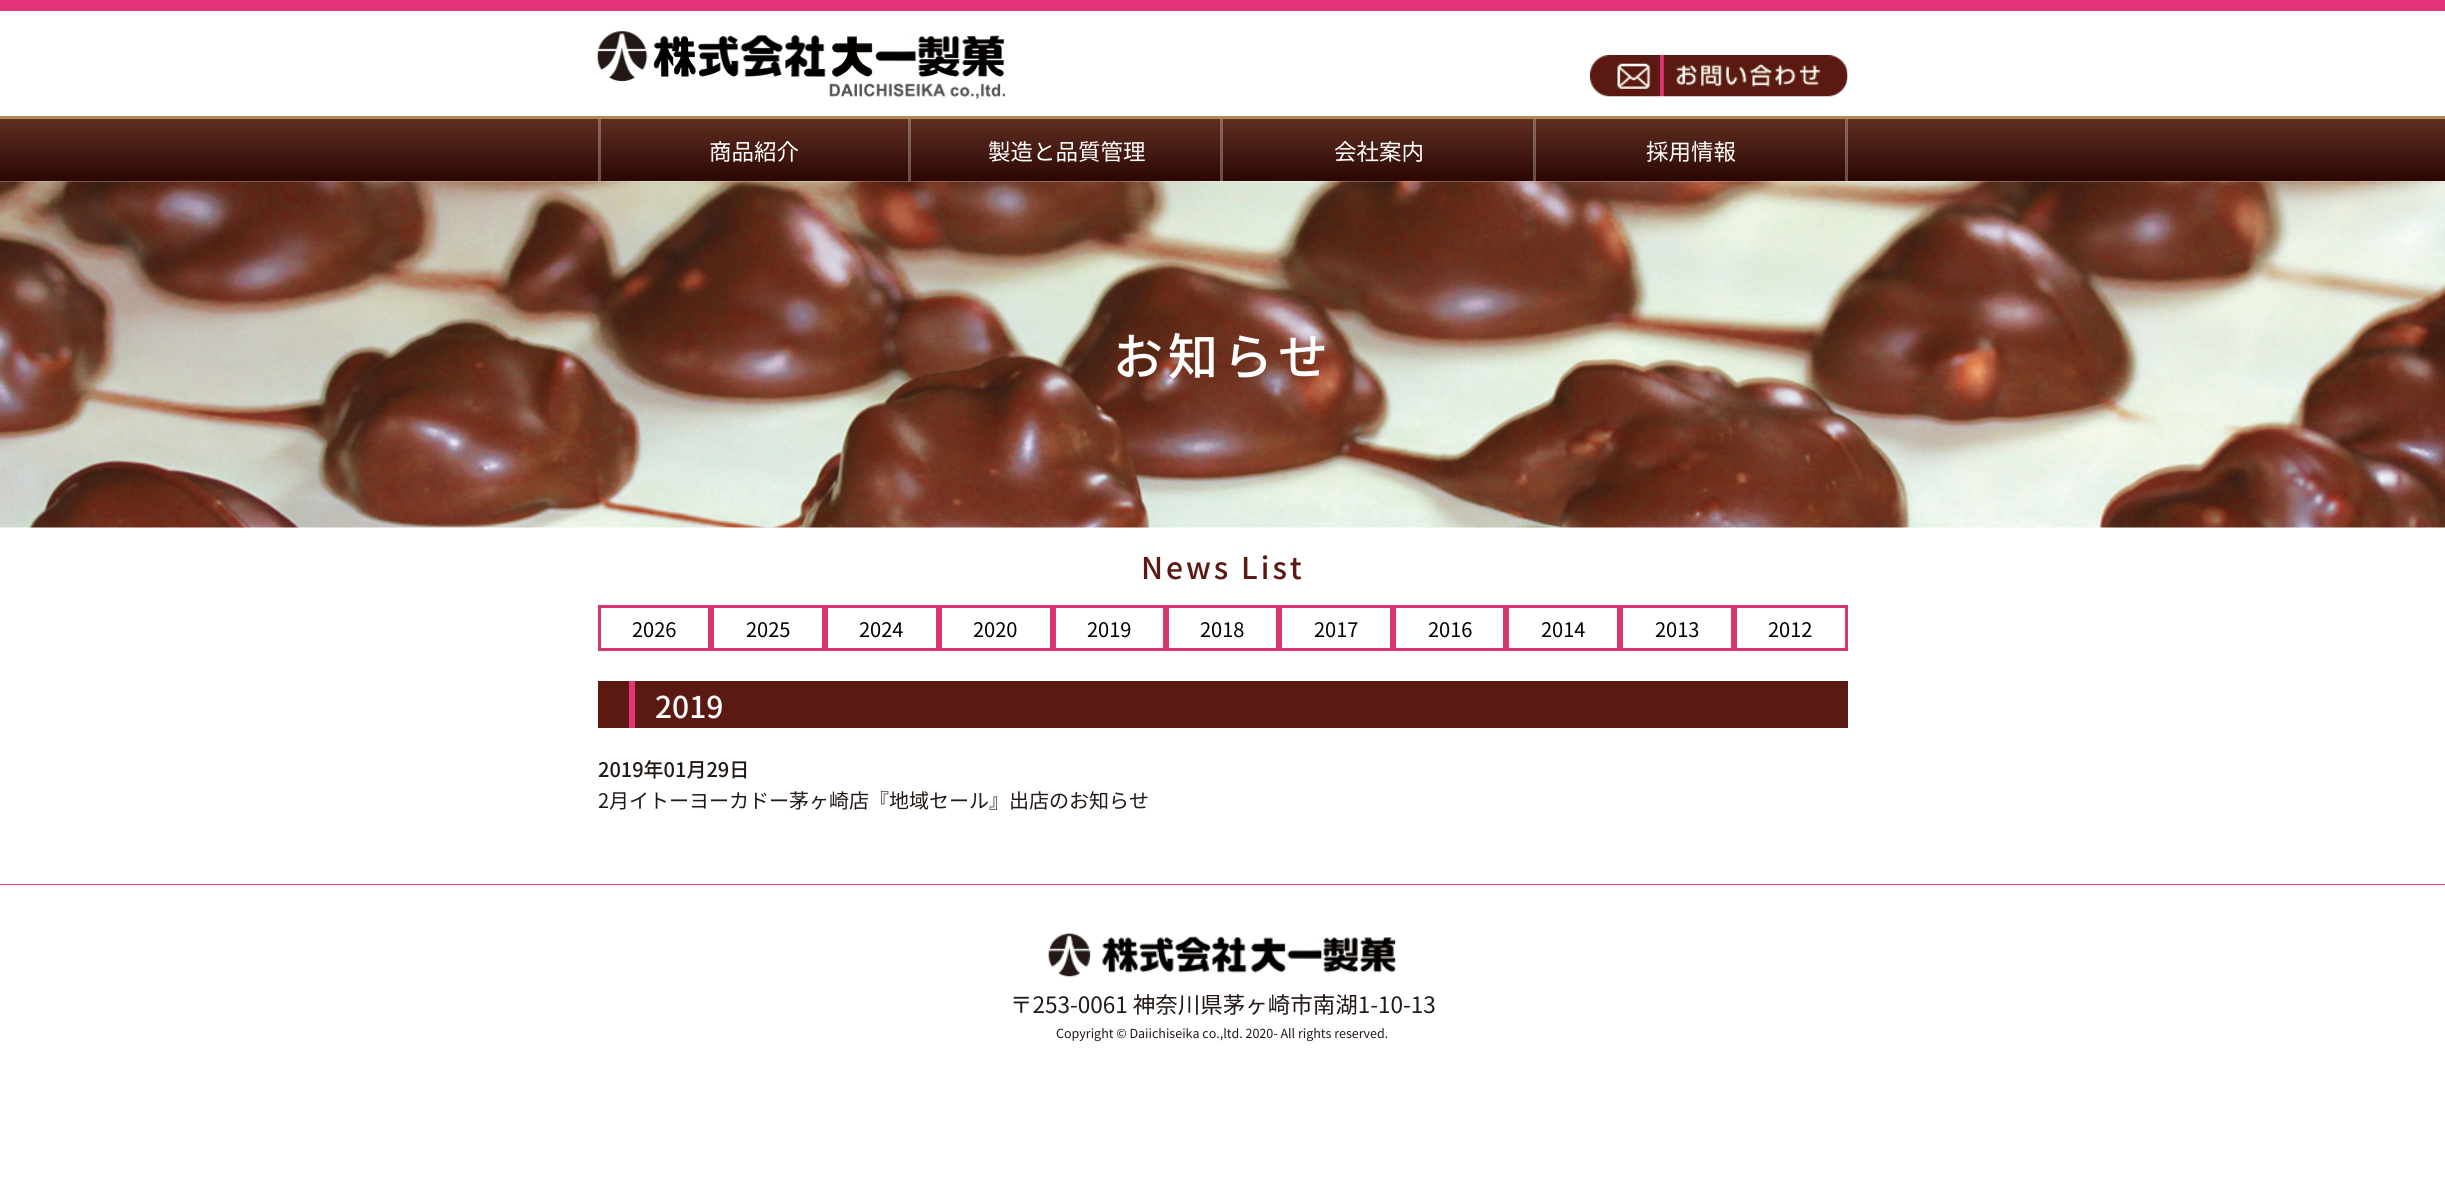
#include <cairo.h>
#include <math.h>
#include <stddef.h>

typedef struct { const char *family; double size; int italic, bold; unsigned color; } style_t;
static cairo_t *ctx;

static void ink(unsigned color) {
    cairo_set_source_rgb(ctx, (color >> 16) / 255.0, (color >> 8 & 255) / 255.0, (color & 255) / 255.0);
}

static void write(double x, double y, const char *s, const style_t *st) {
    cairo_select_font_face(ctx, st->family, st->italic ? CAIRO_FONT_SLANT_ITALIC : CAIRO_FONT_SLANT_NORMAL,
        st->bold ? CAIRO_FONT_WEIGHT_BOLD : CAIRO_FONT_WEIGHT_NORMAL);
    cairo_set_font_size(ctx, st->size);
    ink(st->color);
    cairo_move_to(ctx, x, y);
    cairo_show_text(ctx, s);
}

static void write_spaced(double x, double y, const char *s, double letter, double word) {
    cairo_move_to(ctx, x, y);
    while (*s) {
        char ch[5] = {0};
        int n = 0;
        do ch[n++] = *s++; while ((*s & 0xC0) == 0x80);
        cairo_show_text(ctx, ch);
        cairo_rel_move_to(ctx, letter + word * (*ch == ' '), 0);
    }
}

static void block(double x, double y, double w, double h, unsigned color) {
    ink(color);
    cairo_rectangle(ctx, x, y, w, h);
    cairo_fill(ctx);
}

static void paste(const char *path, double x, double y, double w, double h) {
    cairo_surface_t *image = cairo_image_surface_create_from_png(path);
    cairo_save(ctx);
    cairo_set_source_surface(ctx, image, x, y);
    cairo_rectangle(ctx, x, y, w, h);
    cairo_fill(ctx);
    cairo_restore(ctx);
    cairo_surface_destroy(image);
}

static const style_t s1 = {"Noto Sans JP", 22.5, 0, 0, 0xffffff};
static const style_t s2 = {"Noto Sans JP", 20, 0, 0, 0x030000};
static const style_t s3 = {"Noto Sans JP Medium", 30, 0, 0, 0xffffff};
static const style_t s4 = {"Noto Sans JP Medium", 20, 0, 0, 0x221815};
static const style_t s5 = {"Noto Sans JP", 20, 0, 0, 0x221815};
static const style_t s6 = {"Noto Sans JP", 22.5, 0, 0, 0x221815};
static const style_t s7 = {"Noto Sans JP", 12.5, 0, 0, 0x221815};

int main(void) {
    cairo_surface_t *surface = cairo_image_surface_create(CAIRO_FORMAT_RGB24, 2445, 1190);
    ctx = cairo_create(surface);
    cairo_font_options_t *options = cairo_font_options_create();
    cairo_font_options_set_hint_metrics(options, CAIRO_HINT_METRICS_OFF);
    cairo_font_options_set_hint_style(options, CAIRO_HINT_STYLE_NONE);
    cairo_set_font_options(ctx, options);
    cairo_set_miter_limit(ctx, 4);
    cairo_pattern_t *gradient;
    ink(0xffffff);
    cairo_paint(ctx);
    block(0, 0, 2445, 11, 0xe73378);
    paste("pic1.png", 597, 31, 408, 68);
    paste("pic2.png", 1590, 55, 258, 42);
    gradient = cairo_pattern_create_linear(1223, 119, 1223, 181);
    cairo_pattern_add_color_stop_rgba(gradient, 0, 0.373, 0.184, 0.133, 1);
    cairo_pattern_add_color_stop_rgba(gradient, 1, 0.169, 0.024, 0.012, 1);
    cairo_set_source(ctx, gradient);
    cairo_pattern_destroy(gradient);
    cairo_rectangle(ctx, 0, 119, 2445, 62);
    cairo_fill(ctx);
    gradient = cairo_pattern_create_linear(1223, 119, 1223, 181);
    cairo_pattern_add_color_stop_rgba(gradient, 0, 0.553, 0.412, 0.373, 1);
    cairo_pattern_add_color_stop_rgba(gradient, 1, 0.408, 0.302, 0.286, 1);
    cairo_set_source(ctx, gradient);
    cairo_pattern_destroy(gradient);
    cairo_rectangle(ctx, 1845, 119, 3, 62);
    cairo_fill(ctx);
    cairo_rectangle(ctx, 1533, 119, 3, 62);
    cairo_fill(ctx);
    cairo_rectangle(ctx, 1220, 119, 3, 62);
    cairo_fill(ctx);
    cairo_rectangle(ctx, 908, 119, 3, 62);
    cairo_fill(ctx);
    cairo_rectangle(ctx, 598, 119, 3, 62);
    cairo_fill(ctx);
    block(0, 116, 2445, 3, 0xb28850);
    write(709, 160, "商品紹介", &s1);
    write(988, 160, "製造と品質管理", &s1);
    write(1334, 160, "会社案内", &s1);
    write(1646, 160, "採用情報", &s1);
    paste("pic3.png", 0, 181, 2445, 347);
    cairo_select_font_face(ctx, "Noto Sans JP Medium", CAIRO_FONT_SLANT_NORMAL, CAIRO_FONT_WEIGHT_NORMAL);
    cairo_set_font_size(ctx, 50);
    write_spaced(1113, 375, "お知らせ", 5, 0);
    cairo_set_font_size(ctx, 30);
    ink(0x5a1a12);
    write_spaced(1141, 579, "News List", 3, 0);
    cairo_rectangle(ctx, 599.5, 606.5, 110, 43);
    ink(0xd73672);
    cairo_set_line_width(ctx, 3);
    cairo_stroke(ctx);
    write(632, 637, "2026", &s2);
    cairo_rectangle(ctx, 712.5, 606.5, 111, 43);
    ink(0xd73672);
    cairo_stroke(ctx);
    write(746, 637, "2025", &s2);
    cairo_rectangle(ctx, 826.5, 606.5, 111, 43);
    ink(0xd73672);
    cairo_stroke(ctx);
    write(859, 637, "2024", &s2);
    cairo_rectangle(ctx, 940.5, 606.5, 111, 43);
    ink(0xd73672);
    cairo_stroke(ctx);
    write(973, 637, "2020", &s2);
    cairo_rectangle(ctx, 1054.5, 606.5, 110, 43);
    ink(0xd73672);
    cairo_stroke(ctx);
    write(1087, 637, "2019", &s2);
    cairo_rectangle(ctx, 1167.5, 606.5, 110, 43);
    ink(0xd73672);
    cairo_stroke(ctx);
    write(1200, 637, "2018", &s2);
    cairo_rectangle(ctx, 1280.5, 606.5, 111, 43);
    ink(0xd73672);
    cairo_stroke(ctx);
    write(1314, 637, "2017", &s2);
    cairo_rectangle(ctx, 1394.5, 606.5, 110, 43);
    ink(0xd73672);
    cairo_stroke(ctx);
    write(1428, 637, "2016", &s2);
    cairo_rectangle(ctx, 1507.5, 606.5, 111, 43);
    ink(0xd73672);
    cairo_stroke(ctx);
    write(1541, 637, "2014", &s2);
    cairo_rectangle(ctx, 1621.5, 606.5, 111, 43);
    ink(0xd73672);
    cairo_stroke(ctx);
    write(1655, 637, "2013", &s2);
    cairo_rectangle(ctx, 1735.5, 606.5, 111, 43);
    ink(0xd73672);
    cairo_stroke(ctx);
    write(1768, 637, "2012", &s2);
    block(598, 681, 1250, 47, 0x5a1a12);
    block(629, 681, 6, 47, 0xe73378);
    write(655, 718, "2019", &s3);
    write(598, 777, "2019年01月29日", &s4);
    write(598, 808, "2月イトーヨーカドー茅ヶ崎店『地域セール』出店のお知らせ", &s5);
    block(0, 884, 2445, 1, 0xe73378);
    paste("pic4.png", 1048, 933, 349, 44);
    write(1010, 1013, "〒253-0061 神奈川県茅ヶ崎市南湖1-10-13", &s6);
    write(1056, 1038, "Copyright © Daiichiseika co.,ltd. 2020- All rights reserved.", &s7);
    cairo_surface_write_to_png(surface, "screenshot.png");
    cairo_font_options_destroy(options);
    cairo_destroy(ctx);
    cairo_surface_destroy(surface);
    return 0;
}
